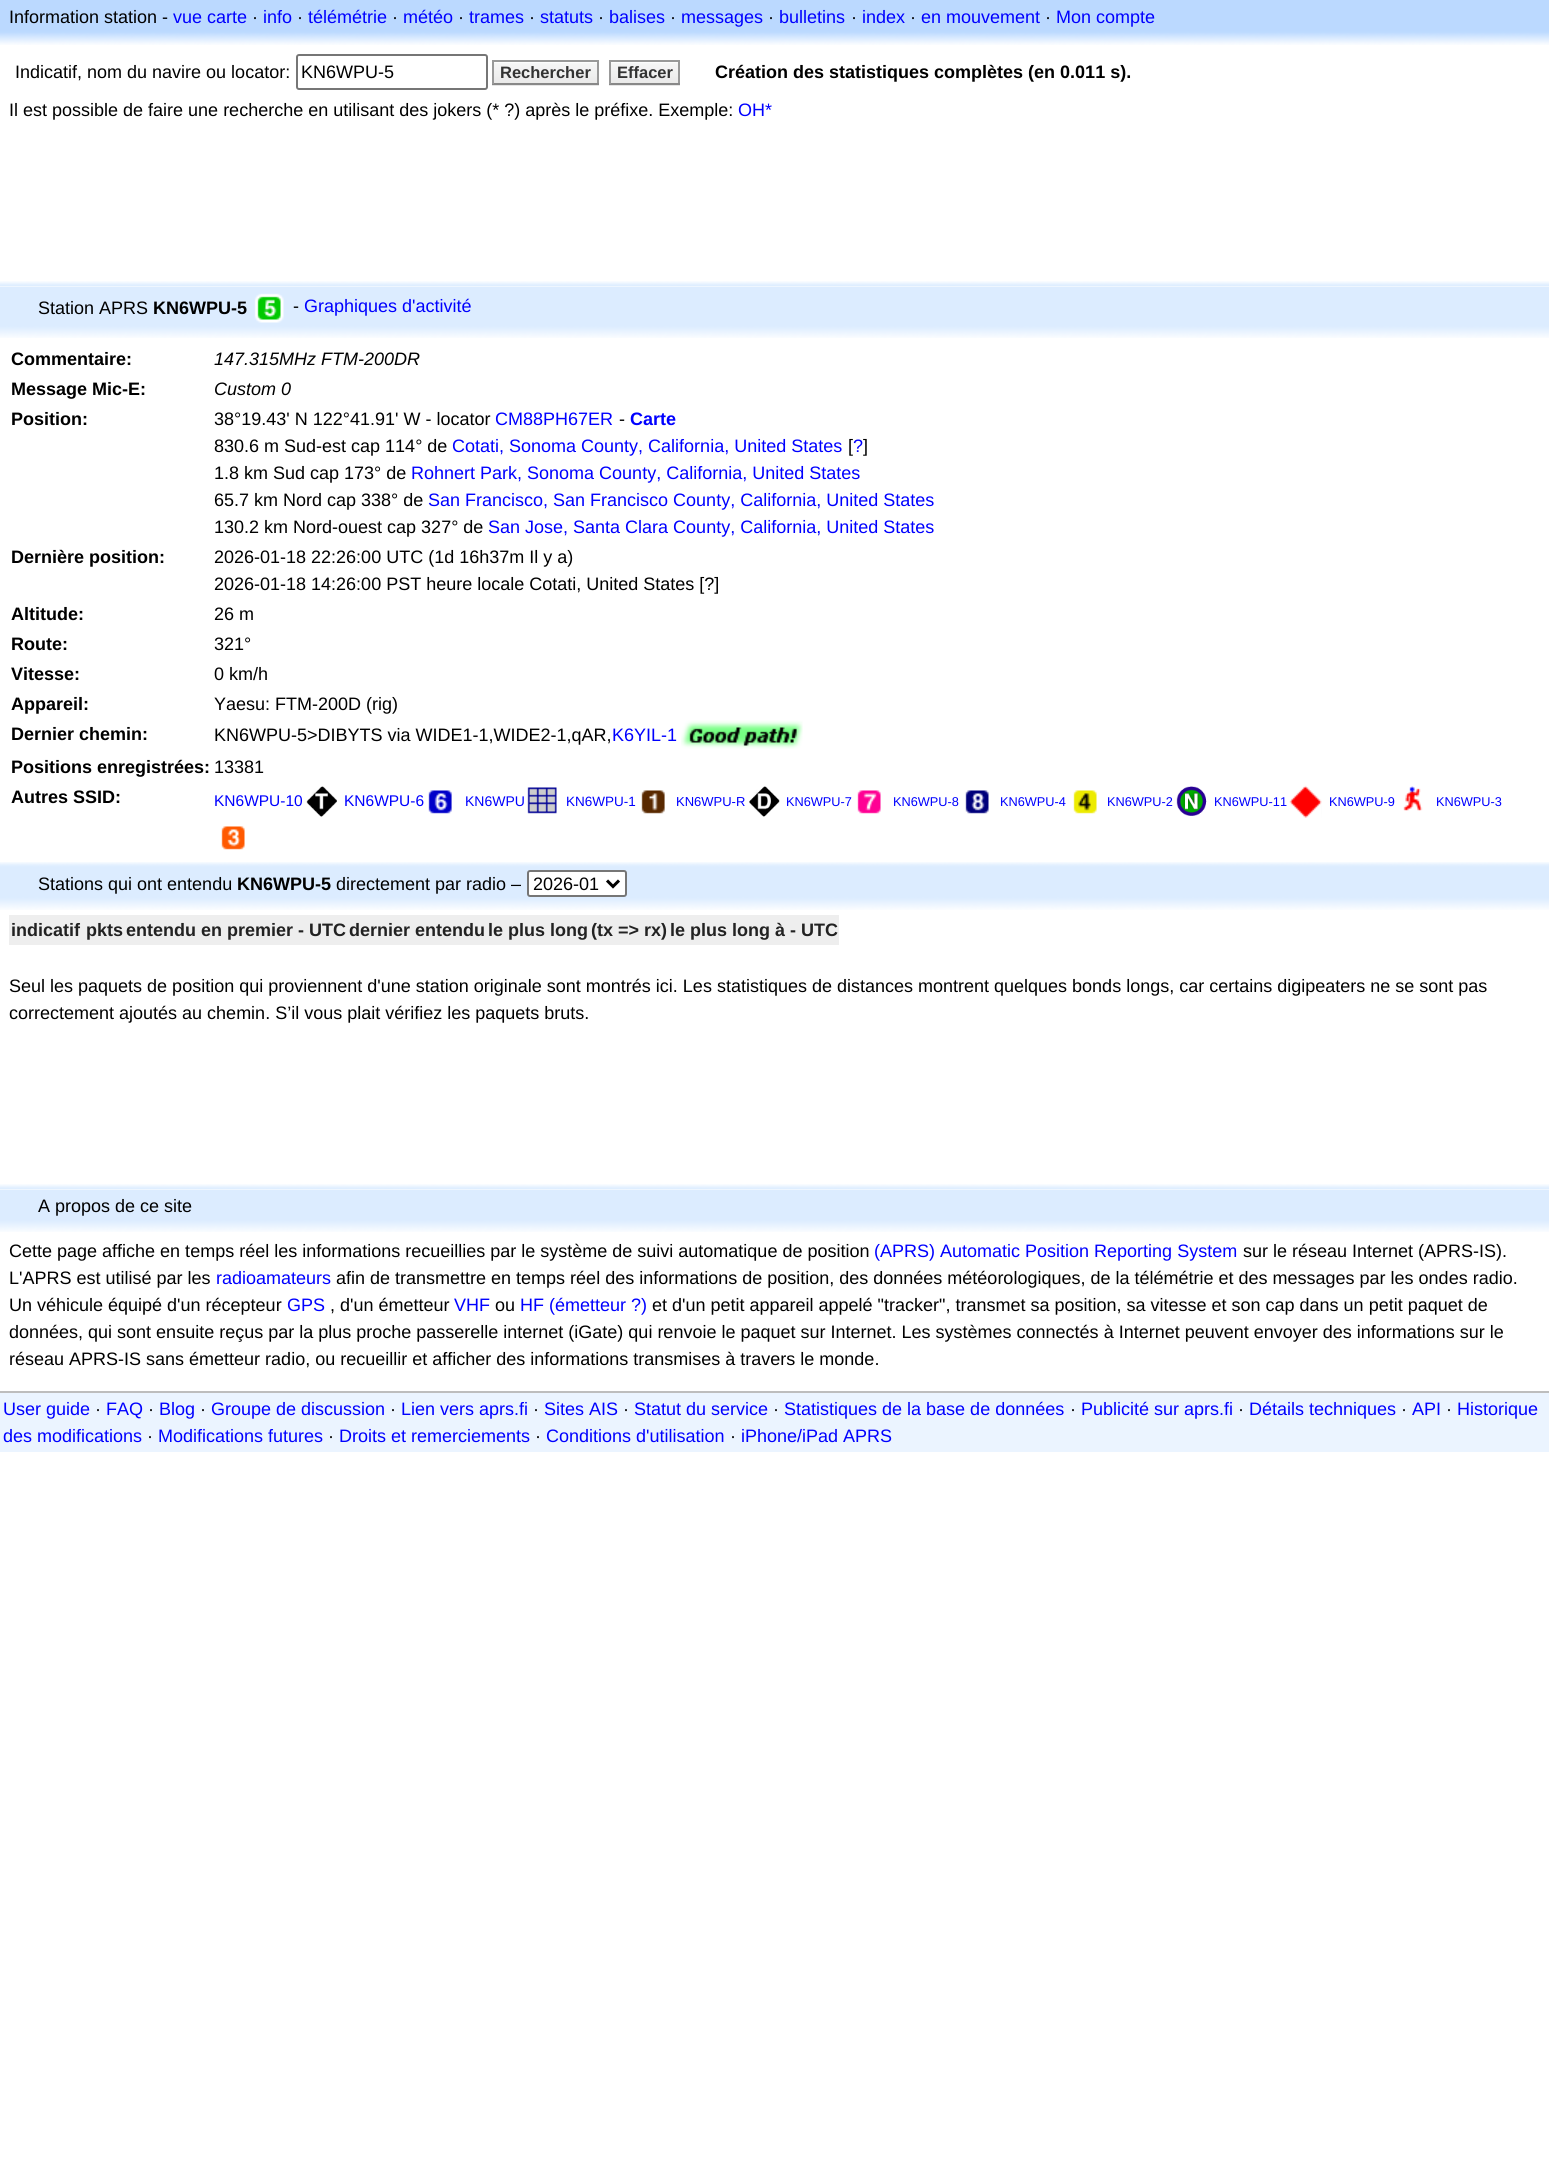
#include <cairo.h>
#include <math.h>
#include <stddef.h>

typedef struct { const char *family; double size; int italic, bold; unsigned color; } style_t;
static cairo_t *ctx;

static void ink(unsigned color) {
    cairo_set_source_rgb(ctx, (color >> 16) / 255.0, (color >> 8 & 255) / 255.0, (color & 255) / 255.0);
}

static void write(double x, double y, const char *s, const style_t *st) {
    cairo_select_font_face(ctx, st->family, st->italic ? CAIRO_FONT_SLANT_ITALIC : CAIRO_FONT_SLANT_NORMAL,
        st->bold ? CAIRO_FONT_WEIGHT_BOLD : CAIRO_FONT_WEIGHT_NORMAL);
    cairo_set_font_size(ctx, st->size);
    ink(st->color);
    cairo_move_to(ctx, x, y);
    cairo_show_text(ctx, s);
}

static void block(double x, double y, double w, double h, unsigned color) {
    ink(color);
    cairo_rectangle(ctx, x, y, w, h);
    cairo_fill(ctx);
}

static void round_path(double x, double y, double w, double h, double r) {
    cairo_new_sub_path(ctx);
    cairo_arc(ctx, x + w - r, y + h - r, r, 0, M_PI / 2);
    cairo_arc(ctx, x + r, y + h - r, r, M_PI / 2, M_PI);
    cairo_arc(ctx, x + r, y + r, r, M_PI, 1.5 * M_PI);
    cairo_arc(ctx, x + w - r, y + r, r, 1.5 * M_PI, 2 * M_PI);
    cairo_close_path(ctx);
}

static void paste(const char *path, double x, double y, double w, double h) {
    cairo_surface_t *image = cairo_image_surface_create_from_png(path);
    cairo_save(ctx);
    cairo_set_source_surface(ctx, image, x, y);
    cairo_rectangle(ctx, x, y, w, h);
    cairo_fill(ctx);
    cairo_restore(ctx);
    cairo_surface_destroy(image);
}

static const style_t s1 = {"Liberation Sans", 18, 0, 0, 0x000000};
static const style_t s2 = {"Liberation Sans", 18, 0, 0, 0x0000ff};
static const style_t s3 = {"Liberation Sans", 16.5, 0, 1, 0x333333};
static const style_t s4 = {"Liberation Sans", 18, 0, 1, 0x000000};
static const style_t s5 = {"Liberation Sans", 18, 1, 0, 0x000000};
static const style_t s6 = {"Liberation Sans", 18, 0, 1, 0x0000ff};
static const style_t s7 = {"Liberation Sans", 15.5, 0, 0, 0x0000ff};
static const style_t s8 = {"Liberation Sans", 14, 0, 0, 0x0000ff};
static const style_t s9 = {"Liberation Sans", 13.5, 0, 0, 0x0000ff};
static const style_t s10 = {"Liberation Sans", 13, 0, 0, 0x0000ff};
static const style_t s11 = {"Liberation Sans", 12.75, 0, 0, 0x0000ff};
static const style_t s12 = {"Liberation Sans", 18, 0, 1, 0x222222};

int main(void) {
    cairo_surface_t *surface = cairo_image_surface_create(CAIRO_FORMAT_RGB24, 1549, 2170);
    ctx = cairo_create(surface);
    cairo_font_options_t *options = cairo_font_options_create();
    cairo_font_options_set_hint_metrics(options, CAIRO_HINT_METRICS_OFF);
    cairo_font_options_set_hint_style(options, CAIRO_HINT_STYLE_NONE);
    cairo_set_font_options(ctx, options);
    cairo_set_miter_limit(ctx, 4);
    ink(0xffffff);
    cairo_paint(ctx);
    block(0, 0, 1549, 30, 0xbbd9ff);
    write(9, 23, "Information station -", &s1);
    write(173, 23, "vue carte", &s2);
    write(252, 23, "·", &s1);
    write(263, 23, "info", &s2);
    write(297, 23, "·", &s1);
    write(308, 23, "télémétrie", &s2);
    write(392, 23, "·", &s1);
    write(403, 23, "météo", &s2);
    write(458, 23, "·", &s1);
    write(469, 23, "trames", &s2);
    write(529, 23, "·", &s1);
    write(540, 23, "statuts", &s2);
    write(598, 23, "·", &s1);
    write(609, 23, "balises", &s2);
    write(670, 23, "·", &s1);
    write(681, 23, "messages", &s2);
    write(768, 23, "·", &s1);
    write(779, 23, "bulletins", &s2);
    write(851, 23, "·", &s1);
    write(862, 23, "index", &s2);
    write(910, 23, "·", &s1);
    write(921, 23, "en mouvement", &s2);
    write(1045, 23, "·", &s1);
    write(1056, 23, "Mon compte", &s2);
    paste("pic1.png", 0, 30, 1549, 15);
    write(15, 78, "Indicatif, nom du navire ou locator:", &s1);
    round_path(297, 55, 190, 34, 2);
    ink(0x767676);
    cairo_stroke(ctx);
    write(301, 78, "KN6WPU-5", &s1);
    ink(0xe6e6e6);
    cairo_new_path(ctx);
    cairo_move_to(ctx, 492, 84);
    cairo_line_to(ctx, 492, 86);
    cairo_line_to(ctx, 599, 86);
    cairo_line_to(ctx, 599, 62);
    cairo_line_to(ctx, 598, 62);
    cairo_line_to(ctx, 598, 84);
    cairo_close_path(ctx);
    cairo_fill(ctx);
    paste("pic2.png", 494, 62, 103, 21);
    block(492, 60, 107, 2, 0x999999);
    block(597, 60, 2, 24, 0x999999);
    block(492, 83, 107, 2, 0x888888);
    block(492, 60, 2, 24, 0x999999);
    write(500, 78, "Rechercher", &s3);
    ink(0xe6e6e6);
    cairo_new_path(ctx);
    cairo_move_to(ctx, 609, 84);
    cairo_line_to(ctx, 609, 86);
    cairo_line_to(ctx, 680, 86);
    cairo_line_to(ctx, 680, 62);
    cairo_line_to(ctx, 680, 84);
    cairo_close_path(ctx);
    cairo_fill(ctx);
    paste("pic3.png", 611, 62, 67, 21);
    block(609, 60, 71, 2, 0x999999);
    block(678, 60, 2, 24, 0x999999);
    block(609, 83, 71, 2, 0x888888);
    block(609, 60, 2, 24, 0x999999);
    write(617, 78, "Effacer", &s3);
    write(715, 78, "Création des statistiques complètes (en 0.011 s).", &s4);
    write(9, 116, "Il est possible de faire une recherche en utilisant des jokers (* ?) après le préfixe. Exemple:", &s1);
    write(738, 116, "OH*", &s2);
    paste("pic4.png", 0, 281, 1549, 6);
    block(0, 287, 1549, 39, 0xdcecff);
    write(38, 314, "Station APRS", &s1);
    write(153, 314, "KN6WPU-5", &s4);
    paste("pic5.png", 254, 293, 30, 30);
    write(293, 312, "-", &s1);
    write(304, 312, "Graphiques d'activité", &s2);
    paste("pic6.png", 0, 326, 1549, 12);
    write(11, 365, "Commentaire:", &s4);
    write(214, 365, "147.315MHz FTM-200DR", &s5);
    write(11, 395, "Message Mic-E:", &s4);
    write(214, 395, "Custom 0", &s5);
    write(11, 425, "Position:", &s4);
    write(214, 425, "38°19.43' N 122°41.91' W - locator", &s1);
    write(495, 425, "CM88PH67ER", &s2);
    write(619, 425, "-", &s1);
    write(630, 425, "Carte", &s6);
    write(214, 452, "830.6 m Sud-est cap 114° de", &s1);
    write(452, 452, "Cotati, Sonoma County, California, United States", &s2);
    write(848, 452, "[", &s1);
    write(853, 452, "?", &s2);
    write(863, 452, "]", &s1);
    write(214, 479, "1.8 km Sud cap 173° de", &s1);
    write(411, 479, "Rohnert Park, Sonoma County, California, United States", &s2);
    write(214, 506, "65.7 km Nord cap 338° de", &s1);
    write(428, 506, "San Francisco, San Francisco County, California, United States", &s2);
    write(214, 533, "130.2 km Nord-ouest cap 327° de", &s1);
    write(488, 533, "San Jose, Santa Clara County, California, United States", &s2);
    write(11, 563, "Dernière position:", &s4);
    write(214, 563, "2026-01-18 22:26:00 UTC (1d 16h37m Il y a)", &s1);
    write(214, 590, "2026-01-18 14:26:00 PST heure locale Cotati, United States [?]", &s1);
    write(11, 620, "Altitude:", &s4);
    write(214, 620, "26 m", &s1);
    write(11, 650, "Route:", &s4);
    write(214, 650, "321°", &s1);
    write(11, 680, "Vitesse:", &s4);
    write(214, 680, "0 km/h", &s1);
    write(11, 710, "Appareil:", &s4);
    write(214, 710, "Yaesu: FTM-200D (rig)", &s1);
    write(11, 740, "Dernier chemin:", &s4);
    write(214, 741, "KN6WPU-5>DIBYTS via WIDE1-1,WIDE2-1,qAR,", &s1);
    write(612, 741, "K6YIL-1", &s2);
    paste("pic7.png", 681, 720, 122, 29);
    write(11, 773, "Positions enregistrées:", &s4);
    write(214, 773, "13381", &s1);
    write(11, 803, "Autres SSID:", &s4);
    write(214, 806, "KN6WPU-10", &s7);
    paste("pic8.png", 306, 786, 31, 31);
    write(344, 806, "KN6WPU-6", &s7);
    paste("pic9.png", 428, 790, 24, 24);
    write(465, 806, "KN6WPU", &s8);
    paste("pic10.png", 527, 787, 30, 27);
    write(566, 806, "KN6WPU-1", &s9);
    paste("pic11.png", 641, 790, 24, 24);
    write(676, 806, "KN6WPU-R", &s10);
    paste("pic12.png", 749, 786, 31, 31);
    write(786, 806, "KN6WPU-7", &s11);
    paste("pic13.png", 857, 790, 24, 24);
    write(893, 806, "KN6WPU-8", &s11);
    paste("pic14.png", 965, 790, 24, 24);
    write(1000, 806, "KN6WPU-4", &s11);
    paste("pic15.png", 1073, 790, 24, 24);
    write(1107, 806, "KN6WPU-2", &s11);
    paste("pic16.png", 1176, 786, 31, 30);
    write(1214, 806, "KN6WPU-11", &s11);
    paste("pic17.png", 1289, 785, 33, 33);
    write(1329, 806, "KN6WPU-9", &s11);
    paste("pic18.png", 1403, 786, 20, 25);
    write(1436, 806, "KN6WPU-3", &s11);
    paste("pic19.png", 221, 826, 24, 24);
    paste("pic20.png", 0, 862, 1549, 5);
    block(0, 867, 1549, 30, 0xdcecff);
    write(38, 890, "Stations qui ont entendu", &s1);
    write(237, 890, "KN6WPU-5", &s4);
    write(336, 890, "directement par radio –", &s1);
    ink(0xffffff);
    round_path(528, 871, 98, 25, 2);
    cairo_fill_preserve(ctx);
    ink(0x767676);
    cairo_stroke(ctx);
    cairo_new_path(ctx);
    cairo_move_to(ctx, 607, 880.5);
    cairo_line_to(ctx, 613, 886.5);
    cairo_line_to(ctx, 619, 880.5);
    ink(0x000000);
    cairo_set_line_width(ctx, 3);
    cairo_stroke(ctx);
    write(533, 890, "2026-01", &s1);
    paste("pic21.png", 0, 897, 1549, 13);
    block(9, 915, 830, 30, 0xeeeeee);
    write(11, 936, "indicatif", &s12);
    write(86, 936, "pkts", &s12);
    write(126, 936, "entendu en premier - UTC", &s12);
    write(349, 936, "dernier entendu", &s12);
    write(488, 936, "le plus long", &s12);
    write(591, 936, "(tx => rx)", &s12);
    write(670, 936, "le plus long à - UTC", &s12);
    write(9, 992, "Seul les paquets de position qui proviennent d'une station originale sont montrés ici. Les statistiques de distances montrent quelques bonds longs, car certains digipeaters ne se sont pas", &s1);
    write(9, 1019, "correctement ajoutés au chemin. S’il vous plait vérifiez les paquets bruts.", &s1);
    paste("pic4.png", 0, 1184, 1549, 6);
    block(0, 1190, 1549, 30, 0xdcecff);
    write(38, 1212, "A propos de ce site", &s1);
    paste("pic22.png", 0, 1220, 1549, 12);
    write(9, 1257, "Cette page affiche en temps réel les informations recueillies par le système de suivi automatique de position", &s1);
    write(874, 1257, "(APRS) Automatic Position Reporting System", &s2);
    write(1243, 1257, "sur le réseau Internet (APRS-IS).", &s1);
    write(9, 1284, "L'APRS est utilisé par les", &s1);
    write(216, 1284, "radioamateurs", &s2);
    write(336, 1284, "afin de transmettre en temps réel des informations de position, des données météorologiques, de la télémétrie et des messages par les ondes radio.", &s1);
    write(9, 1311, "Un véhicule équipé d'un récepteur", &s1);
    write(287, 1311, "GPS", &s2);
    write(330, 1311, ", d'un émetteur", &s1);
    write(454, 1311, "VHF", &s2);
    write(495, 1311, "ou", &s1);
    write(520, 1311, "HF (émetteur ?)", &s2);
    write(652, 1311, "et d'un petit appareil appelé \"tracker\", transmet sa position, sa vitesse et son cap dans un petit paquet de", &s1);
    write(9, 1338, "données, qui sont ensuite reçus par la plus proche passerelle internet (iGate) qui renvoie le paquet sur Internet. Les systèmes connectés à Internet peuvent envoyer des informations sur le", &s1);
    write(9, 1365, "réseau APRS-IS sans émetteur radio, ou recueillir et afficher des informations transmises à travers le monde.", &s1);
    block(0, 1393, 1549, 59, 0xebf4ff);
    block(0, 1391, 1549, 2, 0xbdbdbd);
    write(3, 1415, "User guide", &s2);
    write(95, 1415, "·", &s1);
    write(106, 1415, "FAQ", &s2);
    write(148, 1415, "·", &s1);
    write(159, 1415, "Blog", &s2);
    write(200, 1415, "·", &s1);
    write(211, 1415, "Groupe de discussion", &s2);
    write(390, 1415, "·", &s1);
    write(401, 1415, "Lien vers aprs.fi", &s2);
    write(533, 1415, "·", &s1);
    write(544, 1415, "Sites AIS", &s2);
    write(623, 1415, "·", &s1);
    write(634, 1415, "Statut du service", &s2);
    write(773, 1415, "·", &s1);
    write(784, 1415, "Statistiques de la base de données", &s2);
    write(1070, 1415, "·", &s1);
    write(1081, 1415, "Publicité sur aprs.fi", &s2);
    write(1238, 1415, "·", &s1);
    write(1249, 1415, "Détails techniques", &s2);
    write(1401, 1415, "·", &s1);
    write(1412, 1415, "API", &s2);
    write(1446, 1415, "·", &s1);
    write(1457, 1415, "Historique", &s2);
    write(3, 1442, "des modifications", &s2);
    write(147, 1442, "·", &s1);
    write(158, 1442, "Modifications futures", &s2);
    write(328, 1442, "·", &s1);
    write(339, 1442, "Droits et remerciements", &s2);
    write(535, 1442, "·", &s1);
    write(546, 1442, "Conditions d'utilisation", &s2);
    write(730, 1442, "·", &s1);
    write(741, 1442, "iPhone/iPad APRS", &s2);
    cairo_surface_write_to_png(surface, "screenshot.png");
    cairo_font_options_destroy(options);
    cairo_destroy(ctx);
    cairo_surface_destroy(surface);
    return 0;
}
